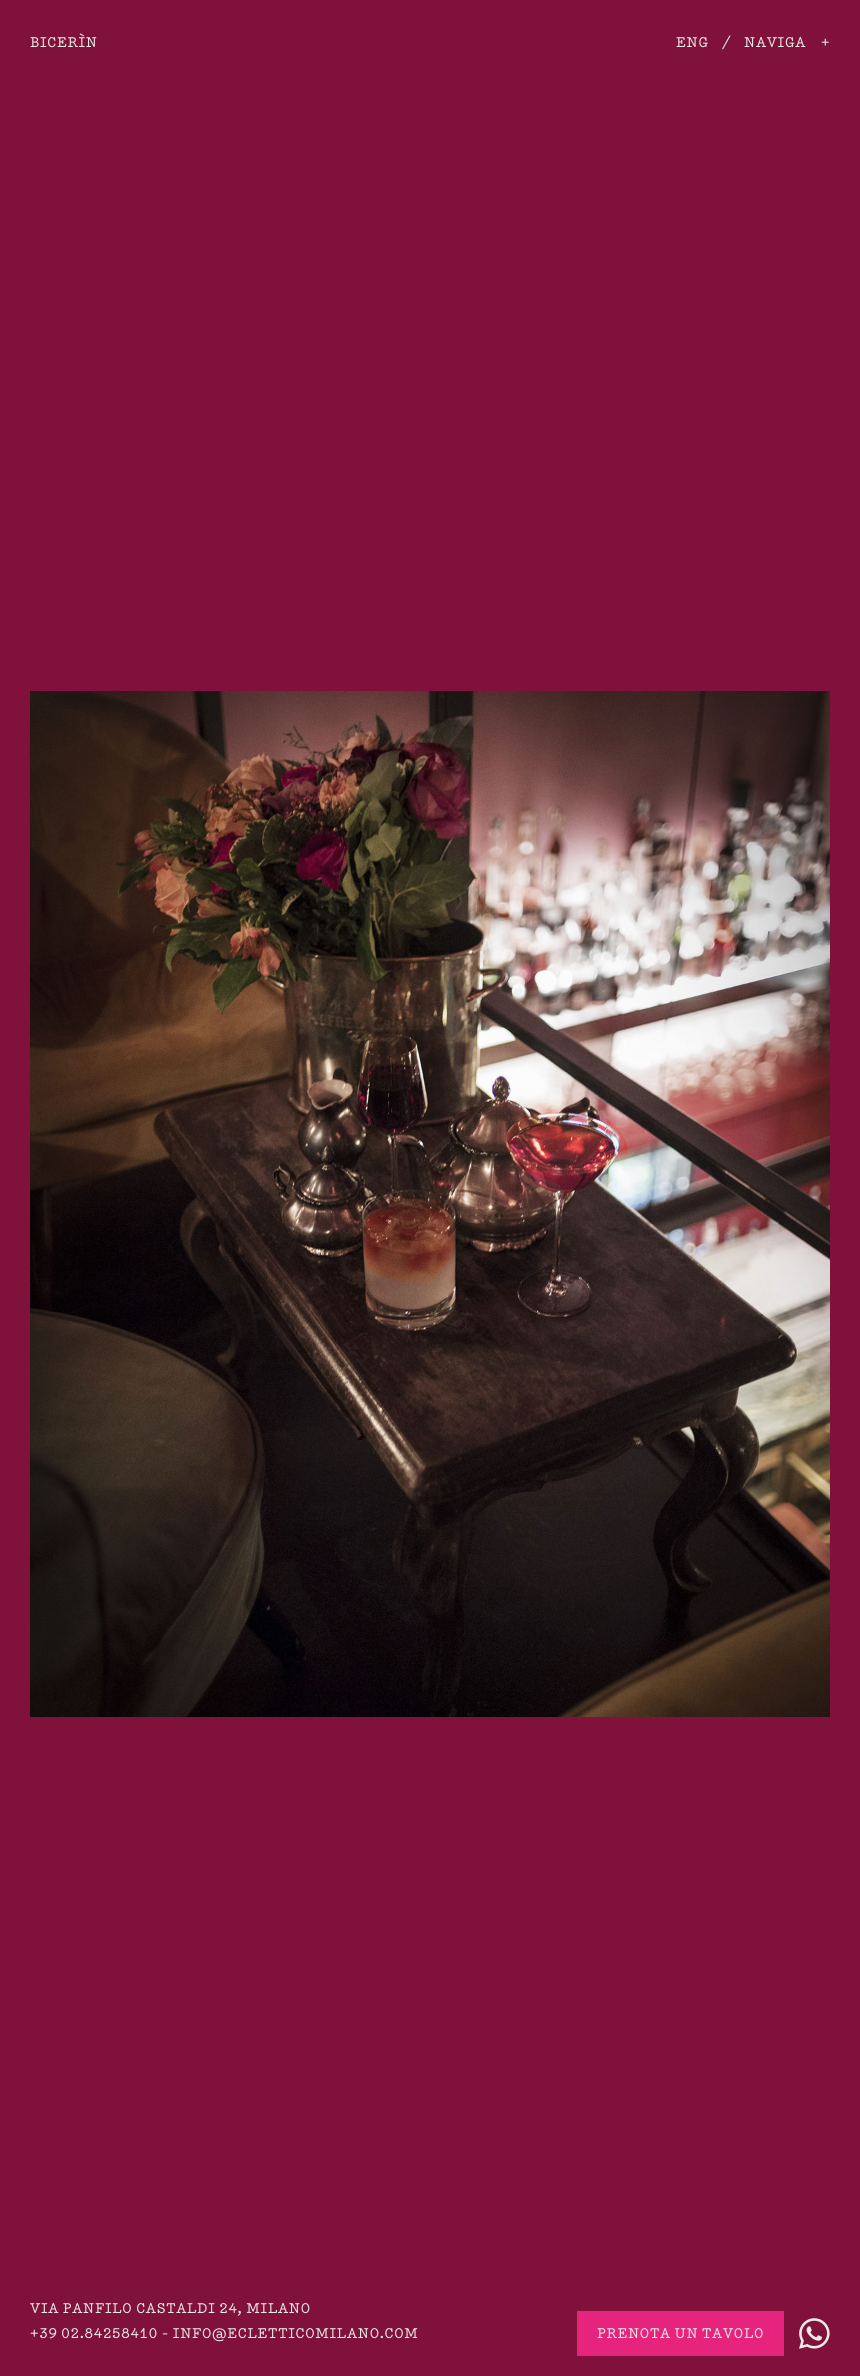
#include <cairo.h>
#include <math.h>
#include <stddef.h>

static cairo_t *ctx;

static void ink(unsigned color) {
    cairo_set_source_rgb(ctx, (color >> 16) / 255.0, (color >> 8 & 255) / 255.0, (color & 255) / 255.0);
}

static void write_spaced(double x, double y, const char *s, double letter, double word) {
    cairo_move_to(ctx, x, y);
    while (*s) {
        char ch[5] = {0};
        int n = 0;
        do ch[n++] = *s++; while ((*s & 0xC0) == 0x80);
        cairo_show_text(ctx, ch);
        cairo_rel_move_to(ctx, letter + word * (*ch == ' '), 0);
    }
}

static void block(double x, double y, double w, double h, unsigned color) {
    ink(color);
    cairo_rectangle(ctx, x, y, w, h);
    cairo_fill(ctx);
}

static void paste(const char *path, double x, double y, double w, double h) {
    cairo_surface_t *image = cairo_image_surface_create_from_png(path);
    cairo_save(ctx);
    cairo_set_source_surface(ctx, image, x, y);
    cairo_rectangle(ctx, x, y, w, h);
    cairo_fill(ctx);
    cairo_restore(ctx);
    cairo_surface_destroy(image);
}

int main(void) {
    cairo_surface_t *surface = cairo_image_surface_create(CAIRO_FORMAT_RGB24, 860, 2376);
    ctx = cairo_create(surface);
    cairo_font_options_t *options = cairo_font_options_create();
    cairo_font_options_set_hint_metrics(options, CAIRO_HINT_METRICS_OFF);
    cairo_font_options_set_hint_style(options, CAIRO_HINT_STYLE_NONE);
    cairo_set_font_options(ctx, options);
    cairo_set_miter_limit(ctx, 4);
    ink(0x7f113a);
    cairo_paint(ctx);
    cairo_select_font_face(ctx, "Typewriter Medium", CAIRO_FONT_SLANT_NORMAL, CAIRO_FONT_WEIGHT_NORMAL);
    cairo_set_font_size(ctx, 14);
    ink(0xece9e6);
    write_spaced(30, 47, "BICERÌN", 0.7, 0);
    write_spaced(676, 47, "ENG", 0.7, 0);
    write_spaced(723, 47, "/", 0.7, 0);
    write_spaced(744, 47, "NAVIGA    +", 0.7, 0);
    paste("pic1.png", 30, 691, 800, 1026);
    write_spaced(30, 2313, "VIA PANFILO CASTALDI 24, MILANO", 0.7, 0);
    write_spaced(30, 2338, "+39 02.84258410 - INFO@ECLETTICOMILANO.COM", 0.7, 0);
    block(577, 2311, 207, 45, 0xe6247d);
    ink(0xece9e6);
    write_spaced(597, 2338, "PRENOTA UN TAVOLO", 0.7, 0);
    paste("pic2.png", 799, 2318, 31, 31);
    cairo_surface_write_to_png(surface, "screenshot.png");
    cairo_font_options_destroy(options);
    cairo_destroy(ctx);
    cairo_surface_destroy(surface);
    return 0;
}
